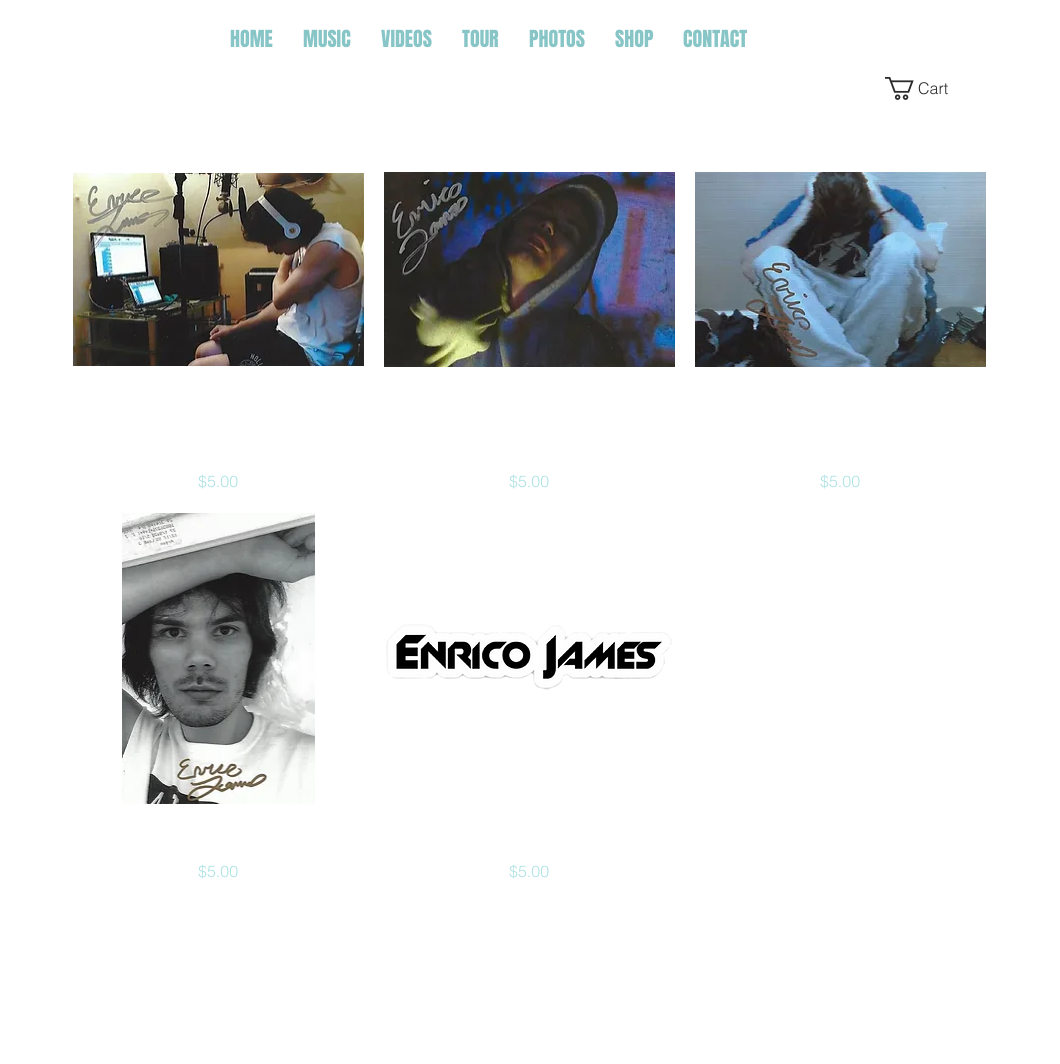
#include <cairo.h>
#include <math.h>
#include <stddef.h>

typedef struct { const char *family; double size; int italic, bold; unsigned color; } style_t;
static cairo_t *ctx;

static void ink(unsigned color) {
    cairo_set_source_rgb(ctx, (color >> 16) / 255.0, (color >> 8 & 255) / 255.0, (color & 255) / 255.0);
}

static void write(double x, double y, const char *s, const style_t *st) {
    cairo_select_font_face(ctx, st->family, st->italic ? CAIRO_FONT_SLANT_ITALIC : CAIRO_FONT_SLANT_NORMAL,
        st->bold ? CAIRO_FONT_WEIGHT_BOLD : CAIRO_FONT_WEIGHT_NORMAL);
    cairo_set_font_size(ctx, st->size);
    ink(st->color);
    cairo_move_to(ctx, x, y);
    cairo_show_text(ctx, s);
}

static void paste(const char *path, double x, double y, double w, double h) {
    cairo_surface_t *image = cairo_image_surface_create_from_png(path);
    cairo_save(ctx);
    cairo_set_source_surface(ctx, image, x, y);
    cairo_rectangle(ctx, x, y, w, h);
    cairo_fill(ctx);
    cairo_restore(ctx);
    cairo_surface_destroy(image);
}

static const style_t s1 = {"Anton", 20, 0, 0, 0x87c5c7};
static const style_t s2 = {"helvetica Light", 16, 0, 0, 0x2b2b2b};
static const style_t s3 = {"helvetica Light", 16, 0, 0, 0xace1e3};

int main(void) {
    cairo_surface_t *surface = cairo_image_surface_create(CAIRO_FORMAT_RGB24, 1060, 1064);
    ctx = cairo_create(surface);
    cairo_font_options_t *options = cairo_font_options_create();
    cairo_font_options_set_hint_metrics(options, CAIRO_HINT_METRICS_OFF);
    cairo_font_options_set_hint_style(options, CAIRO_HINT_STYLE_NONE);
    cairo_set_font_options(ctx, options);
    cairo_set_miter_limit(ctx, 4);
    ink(0xffffff);
    cairo_paint(ctx);
    write(230, 47, "HOME", &s1);
    write(303, 47, "MUSIC", &s1);
    write(381, 47, "VIDEOS", &s1);
    write(462, 47, "TOUR", &s1);
    write(529, 47, "PHOTOS", &s1);
    write(615, 47, "SHOP", &s1);
    write(683, 47, "CONTACT", &s1);
    paste("pic1.png", 885, 77, 29, 23);
    write(918, 94, "Cart", &s2);
    paste("pic2.png", 73, 173, 291, 193);
    write(198, 487, "$5.00", &s3);
    paste("pic3.png", 384, 172, 291, 195);
    write(509, 487, "$5.00", &s3);
    paste("pic4.png", 695, 172, 291, 195);
    write(820, 487, "$5.00", &s3);
    paste("pic5.png", 122, 513, 193, 291);
    write(198, 877, "$5.00", &s3);
    paste("pic6.png", 386, 624, 286, 66);
    write(509, 877, "$5.00", &s3);
    cairo_surface_write_to_png(surface, "screenshot.png");
    cairo_font_options_destroy(options);
    cairo_destroy(ctx);
    cairo_surface_destroy(surface);
    return 0;
}
